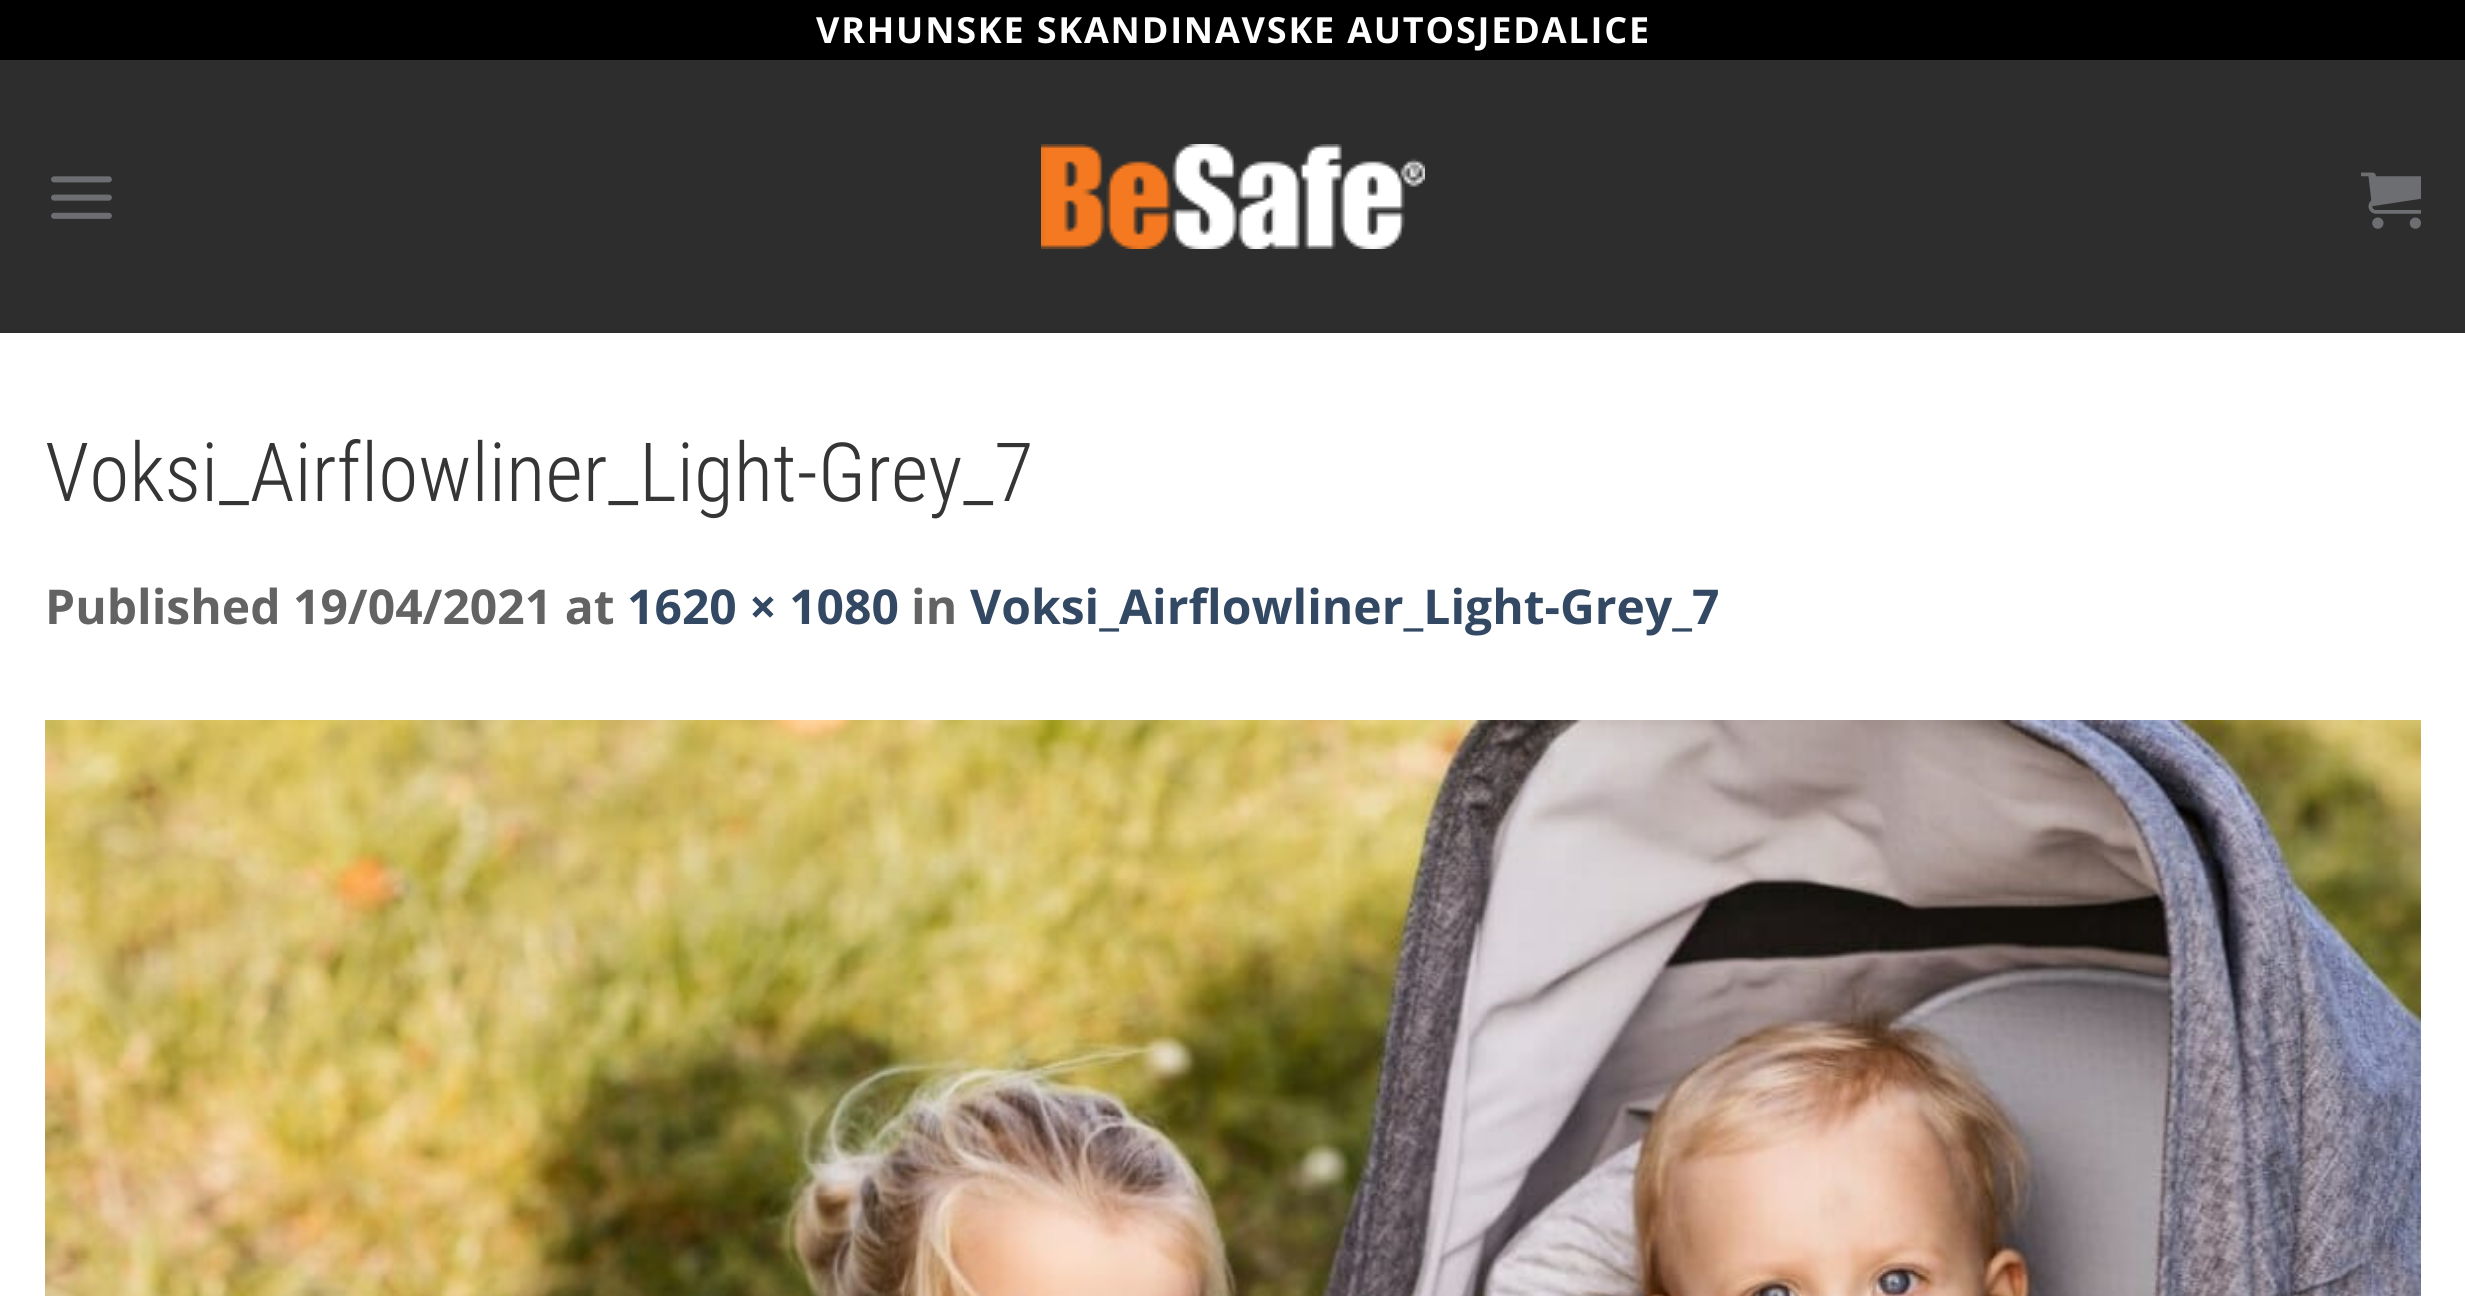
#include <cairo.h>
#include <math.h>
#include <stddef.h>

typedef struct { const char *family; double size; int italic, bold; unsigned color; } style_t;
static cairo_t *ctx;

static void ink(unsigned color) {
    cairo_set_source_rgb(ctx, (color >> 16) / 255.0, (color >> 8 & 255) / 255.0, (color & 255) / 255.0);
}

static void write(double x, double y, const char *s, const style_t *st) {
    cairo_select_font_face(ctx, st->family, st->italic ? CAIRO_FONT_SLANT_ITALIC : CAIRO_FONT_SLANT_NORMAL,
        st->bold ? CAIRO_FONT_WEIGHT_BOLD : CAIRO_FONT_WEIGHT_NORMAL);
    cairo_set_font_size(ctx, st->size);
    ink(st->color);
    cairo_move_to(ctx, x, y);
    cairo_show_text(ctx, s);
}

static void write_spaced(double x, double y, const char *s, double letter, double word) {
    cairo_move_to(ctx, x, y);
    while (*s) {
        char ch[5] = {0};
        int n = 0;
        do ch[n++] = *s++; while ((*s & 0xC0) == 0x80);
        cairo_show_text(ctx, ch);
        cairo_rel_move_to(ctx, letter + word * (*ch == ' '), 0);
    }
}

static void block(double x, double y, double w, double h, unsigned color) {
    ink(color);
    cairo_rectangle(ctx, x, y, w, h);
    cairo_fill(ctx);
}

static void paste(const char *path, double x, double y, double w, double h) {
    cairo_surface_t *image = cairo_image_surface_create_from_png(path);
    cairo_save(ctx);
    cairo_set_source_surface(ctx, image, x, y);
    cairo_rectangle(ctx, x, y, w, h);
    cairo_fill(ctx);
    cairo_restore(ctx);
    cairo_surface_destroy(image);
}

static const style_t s1 = {"Roboto Condensed Light", 81.6, 0, 0, 0x353535};
static const style_t s2 = {"Open Sans", 48, 0, 1, 0x636363};
static const style_t s3 = {"Open Sans", 48, 0, 1, 0x334862};

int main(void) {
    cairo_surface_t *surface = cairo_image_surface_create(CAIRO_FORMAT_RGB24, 2465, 1296);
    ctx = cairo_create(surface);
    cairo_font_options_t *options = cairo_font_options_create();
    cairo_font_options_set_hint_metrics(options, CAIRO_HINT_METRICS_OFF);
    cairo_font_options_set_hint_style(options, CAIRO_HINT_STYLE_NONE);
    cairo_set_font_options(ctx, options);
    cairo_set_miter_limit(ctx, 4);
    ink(0xffffff);
    cairo_paint(ctx);
    block(0, 0, 2465, 60, 0x000000);
    cairo_select_font_face(ctx, "Open Sans", CAIRO_FONT_SLANT_NORMAL, CAIRO_FONT_WEIGHT_BOLD);
    cairo_set_font_size(ctx, 36);
    ink(0xffffff);
    write_spaced(816, 43, "VRHUNSKE SKANDINAVSKE AUTOSJEDALICE", 1.8, 0);
    block(0, 60, 2465, 273, 0x2d2d2d);
    paste("pic1.png", 51, 176, 61, 43);
    paste("pic2.png", 1041, 144, 384, 105);
    paste("pic3.png", 2361, 172, 60, 57);
    write(45, 501, "Voksi_Airflowliner_Light-Grey_7", &s1);
    write(45, 624, "Published 19/04/2021 at", &s2);
    write(627, 624, "1620 × 1080", &s3);
    write(911, 624, "in", &s2);
    write(970, 624, "Voksi_Airflowliner_Light-Grey_7", &s3);
    paste("pic4.png", 45, 720, 2376, 576);
    cairo_surface_write_to_png(surface, "screenshot.png");
    cairo_font_options_destroy(options);
    cairo_destroy(ctx);
    cairo_surface_destroy(surface);
    return 0;
}
